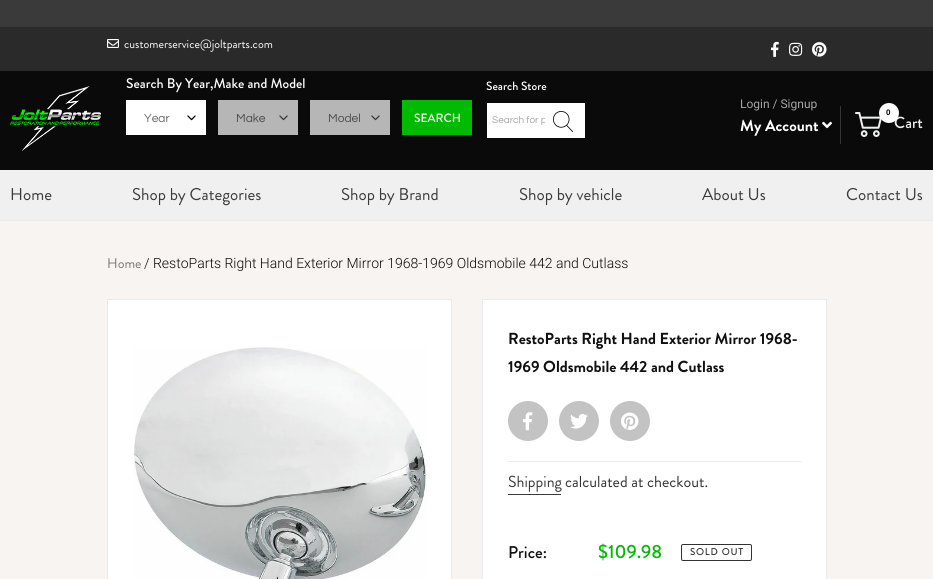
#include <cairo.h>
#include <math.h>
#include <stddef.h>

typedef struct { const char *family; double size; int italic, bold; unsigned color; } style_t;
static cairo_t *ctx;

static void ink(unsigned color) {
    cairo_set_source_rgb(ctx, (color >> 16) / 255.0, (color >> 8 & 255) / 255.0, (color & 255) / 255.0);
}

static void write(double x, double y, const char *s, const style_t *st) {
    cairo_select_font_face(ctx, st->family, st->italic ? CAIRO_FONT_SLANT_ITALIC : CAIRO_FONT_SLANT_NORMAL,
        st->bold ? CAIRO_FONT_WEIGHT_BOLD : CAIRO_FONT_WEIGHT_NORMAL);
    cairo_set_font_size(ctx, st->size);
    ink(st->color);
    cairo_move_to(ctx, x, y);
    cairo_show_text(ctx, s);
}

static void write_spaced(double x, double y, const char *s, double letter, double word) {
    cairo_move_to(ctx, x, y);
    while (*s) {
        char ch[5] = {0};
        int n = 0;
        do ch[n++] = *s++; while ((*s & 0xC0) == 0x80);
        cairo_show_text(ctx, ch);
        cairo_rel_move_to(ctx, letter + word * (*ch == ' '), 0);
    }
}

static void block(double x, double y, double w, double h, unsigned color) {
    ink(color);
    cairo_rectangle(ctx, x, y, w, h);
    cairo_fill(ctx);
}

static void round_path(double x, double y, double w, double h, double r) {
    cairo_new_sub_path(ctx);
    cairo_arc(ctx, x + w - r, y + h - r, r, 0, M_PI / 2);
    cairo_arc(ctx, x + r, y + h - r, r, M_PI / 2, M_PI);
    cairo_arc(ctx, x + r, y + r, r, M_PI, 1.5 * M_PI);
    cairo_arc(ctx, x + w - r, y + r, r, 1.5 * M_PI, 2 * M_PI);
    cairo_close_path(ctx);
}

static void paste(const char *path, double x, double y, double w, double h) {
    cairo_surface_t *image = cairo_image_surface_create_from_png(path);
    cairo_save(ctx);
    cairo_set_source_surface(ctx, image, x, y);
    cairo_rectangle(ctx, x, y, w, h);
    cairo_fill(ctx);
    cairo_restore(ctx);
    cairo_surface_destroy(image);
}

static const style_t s1 = {"Brandon Grotesque", 12, 0, 0, 0xffffff};
static const style_t s2 = {"Brandon Grotesque Medium", 14, 0, 0, 0xffffff};
static const style_t s3 = {"Questrial", 12, 0, 0, 0x696969};
static const style_t s4 = {"Questrial", 12, 0, 0, 0x4d4d4d};
static const style_t s5 = {"Brandon Grotesque Medium", 12, 0, 0, 0xffffff};
static const style_t s6 = {"Questrial", 10, 0, 0, 0xa5a5a5};
static const style_t s7 = {"Roboto", 12, 0, 0, 0xa5a5a5};
static const style_t s8 = {"Brandon Grotesque", 16, 0, 1, 0xffffff};
static const style_t s9 = {"Brandon Grotesque Medium", 16, 0, 0, 0xf0f0f0};
static const style_t s10 = {"Liberation Sans", 8, 0, 1, 0x0a0a0a};
static const style_t s11 = {"Brandon Grotesque", 17, 0, 0, 0x3a3a3a};
static const style_t s12 = {"Brandon Grotesque", 14, 0, 0, 0x777777};
static const style_t s13 = {"Roboto Light", 14, 0, 0, 0x0a0a0a};
static const style_t s14 = {"Brandon Grotesque", 16, 0, 1, 0x101011};
static const style_t s15 = {"Brandon Grotesque", 16, 0, 0, 0x3a3a3a};
static const style_t s16 = {"Brandon Grotesque", 16, 0, 0, 0x333232};
static const style_t s17 = {"Brandon Grotesque Medium", 17, 0, 0, 0x101011};
static const style_t s18 = {"Brandon Grotesque Medium", 19, 0, 0, 0x01ba01};

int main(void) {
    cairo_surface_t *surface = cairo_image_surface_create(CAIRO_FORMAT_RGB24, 933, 579);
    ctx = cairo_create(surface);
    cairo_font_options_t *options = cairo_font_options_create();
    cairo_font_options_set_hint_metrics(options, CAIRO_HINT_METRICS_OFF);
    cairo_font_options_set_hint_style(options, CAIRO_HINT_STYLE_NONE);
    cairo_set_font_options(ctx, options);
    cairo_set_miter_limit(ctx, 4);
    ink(0x2a2a2a);
    cairo_paint(ctx);
    block(0, 0, 933, 27, 0x3a3a3a);
    paste("pic1.png", 107, 39, 12, 9);
    write(124, 48, "customerservice@joltparts.com", &s1);
    paste("pic2.png", 771, 41, 8, 16);
    paste("pic3.png", 789, 42, 14, 14);
    paste("pic4.png", 812, 42, 15, 15);
    block(0, 71, 933, 99, 0x0a0a0a);
    block(0, 220, 933, 1, 0xebebeb);
    paste("pic5.png", 10, 86, 91, 65);
    write(126, 88, "Search By Year,Make and Model", &s2);
    block(126, 100, 80, 35, 0xffffff);
    paste("pic6.png", 187, 115, 9, 6);
    write(144, 122, "Year", &s3);
    block(218, 100, 80, 35, 0xb6b6b6);
    paste("pic7.png", 279, 115, 9, 6);
    write(236, 122, "Make", &s4);
    block(310, 100, 80, 35, 0xb6b6b6);
    paste("pic7.png", 371, 115, 9, 6);
    write(328, 122, "Model", &s4);
    block(402, 100, 70, 35, 0x01ba01);
    write(414, 122, "SEARCH", &s5);
    write(486, 90, "Search Store", &s5);
    block(487, 103, 98, 35, 0xffffff);
    cairo_save(ctx);
    cairo_rectangle(ctx, 492, 115, 53, 10);
    cairo_clip(ctx);
    write(492, 123, "Search for p", &s6);
    cairo_restore(ctx);
    paste("pic8.png", 553, 111, 20, 21);
    write(740, 108, "Login / Signup", &s7);
    write(740, 131, "My Account", &s8);
    paste("pic9.png", 822, 121, 10, 8);
    block(840, 106, 1, 38, 0x363636);
    paste("pic10.png", 855, 112, 27, 25);
    write(894, 128, "Cart", &s9);
    ink(0xffffff);
    cairo_new_path(ctx);
    cairo_arc(ctx, 889, 113, 10, 0, 2 * M_PI);
    cairo_fill(ctx);
    write(886, 115, "0", &s10);
    block(0, 170, 933, 50, 0xf0f0f0);
    write(10, 200, "Home", &s11);
    write(132, 200, "Shop by Categories", &s11);
    write(341, 200, "Shop by Brand", &s11);
    write(519, 200, "Shop by vehicle", &s11);
    write(702, 200, "About Us", &s11);
    write(846, 200, "Contact Us", &s11);
    block(0, 221, 933, 358, 0xf7f4f2);
    write(107, 268, "Home", &s12);
    write(144, 268, "/ RestoParts Right Hand Exterior Mirror 1968-1969 Oldsmobile 442 and Cutlass", &s13);
    ink(0xffffff);
    cairo_rectangle(ctx, 107.5, 299.5, 344, 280);
    cairo_fill_preserve(ctx);
    ink(0xeaeaea);
    cairo_set_line_width(ctx, 1);
    cairo_stroke(ctx);
    paste("pic11.png", 134, 346, 293, 233);
    ink(0xffffff);
    cairo_rectangle(ctx, 482.5, 299.5, 344, 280);
    cairo_fill_preserve(ctx);
    ink(0xeaeaea);
    cairo_stroke(ctx);
    write(508, 344, "RestoParts Right Hand Exterior Mirror 1968-", &s14);
    write(508, 372, "1969 Oldsmobile 442 and Cutlass", &s14);
    block(508, 461, 293, 1, 0xebebeb);
    ink(0xc3c3c3);
    cairo_new_path(ctx);
    cairo_arc(ctx, 528, 421, 20, 0, 2 * M_PI);
    cairo_fill(ctx);
    paste("pic12.png", 523, 412, 10, 19);
    cairo_arc(ctx, 579, 421, 20, 0, 2 * M_PI);
    cairo_fill(ctx);
    paste("pic13.png", 570, 414, 18, 15);
    cairo_arc(ctx, 630, 421, 20, 0, 2 * M_PI);
    cairo_fill(ctx);
    paste("pic14.png", 621, 412, 18, 18);
    write(508, 487, "Shipping", &s15);
    block(508, 494, 53, 1, 0x3a3a3a);
    write(565, 487, "calculated at checkout.", &s16);
    write(508, 558, "Price:", &s17);
    write(598, 558, "$109.98", &s18);
    round_path(681.5, 544.5, 70, 16, 1.5);
    ink(0x333232);
    cairo_stroke(ctx);
    cairo_select_font_face(ctx, "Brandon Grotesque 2", CAIRO_FONT_SLANT_NORMAL, CAIRO_FONT_WEIGHT_BOLD);
    cairo_set_font_size(ctx, 9.5);
    write_spaced(690, 555, "SOLD OUT", 1, 0);
    cairo_surface_write_to_png(surface, "screenshot.png");
    cairo_font_options_destroy(options);
    cairo_destroy(ctx);
    cairo_surface_destroy(surface);
    return 0;
}
